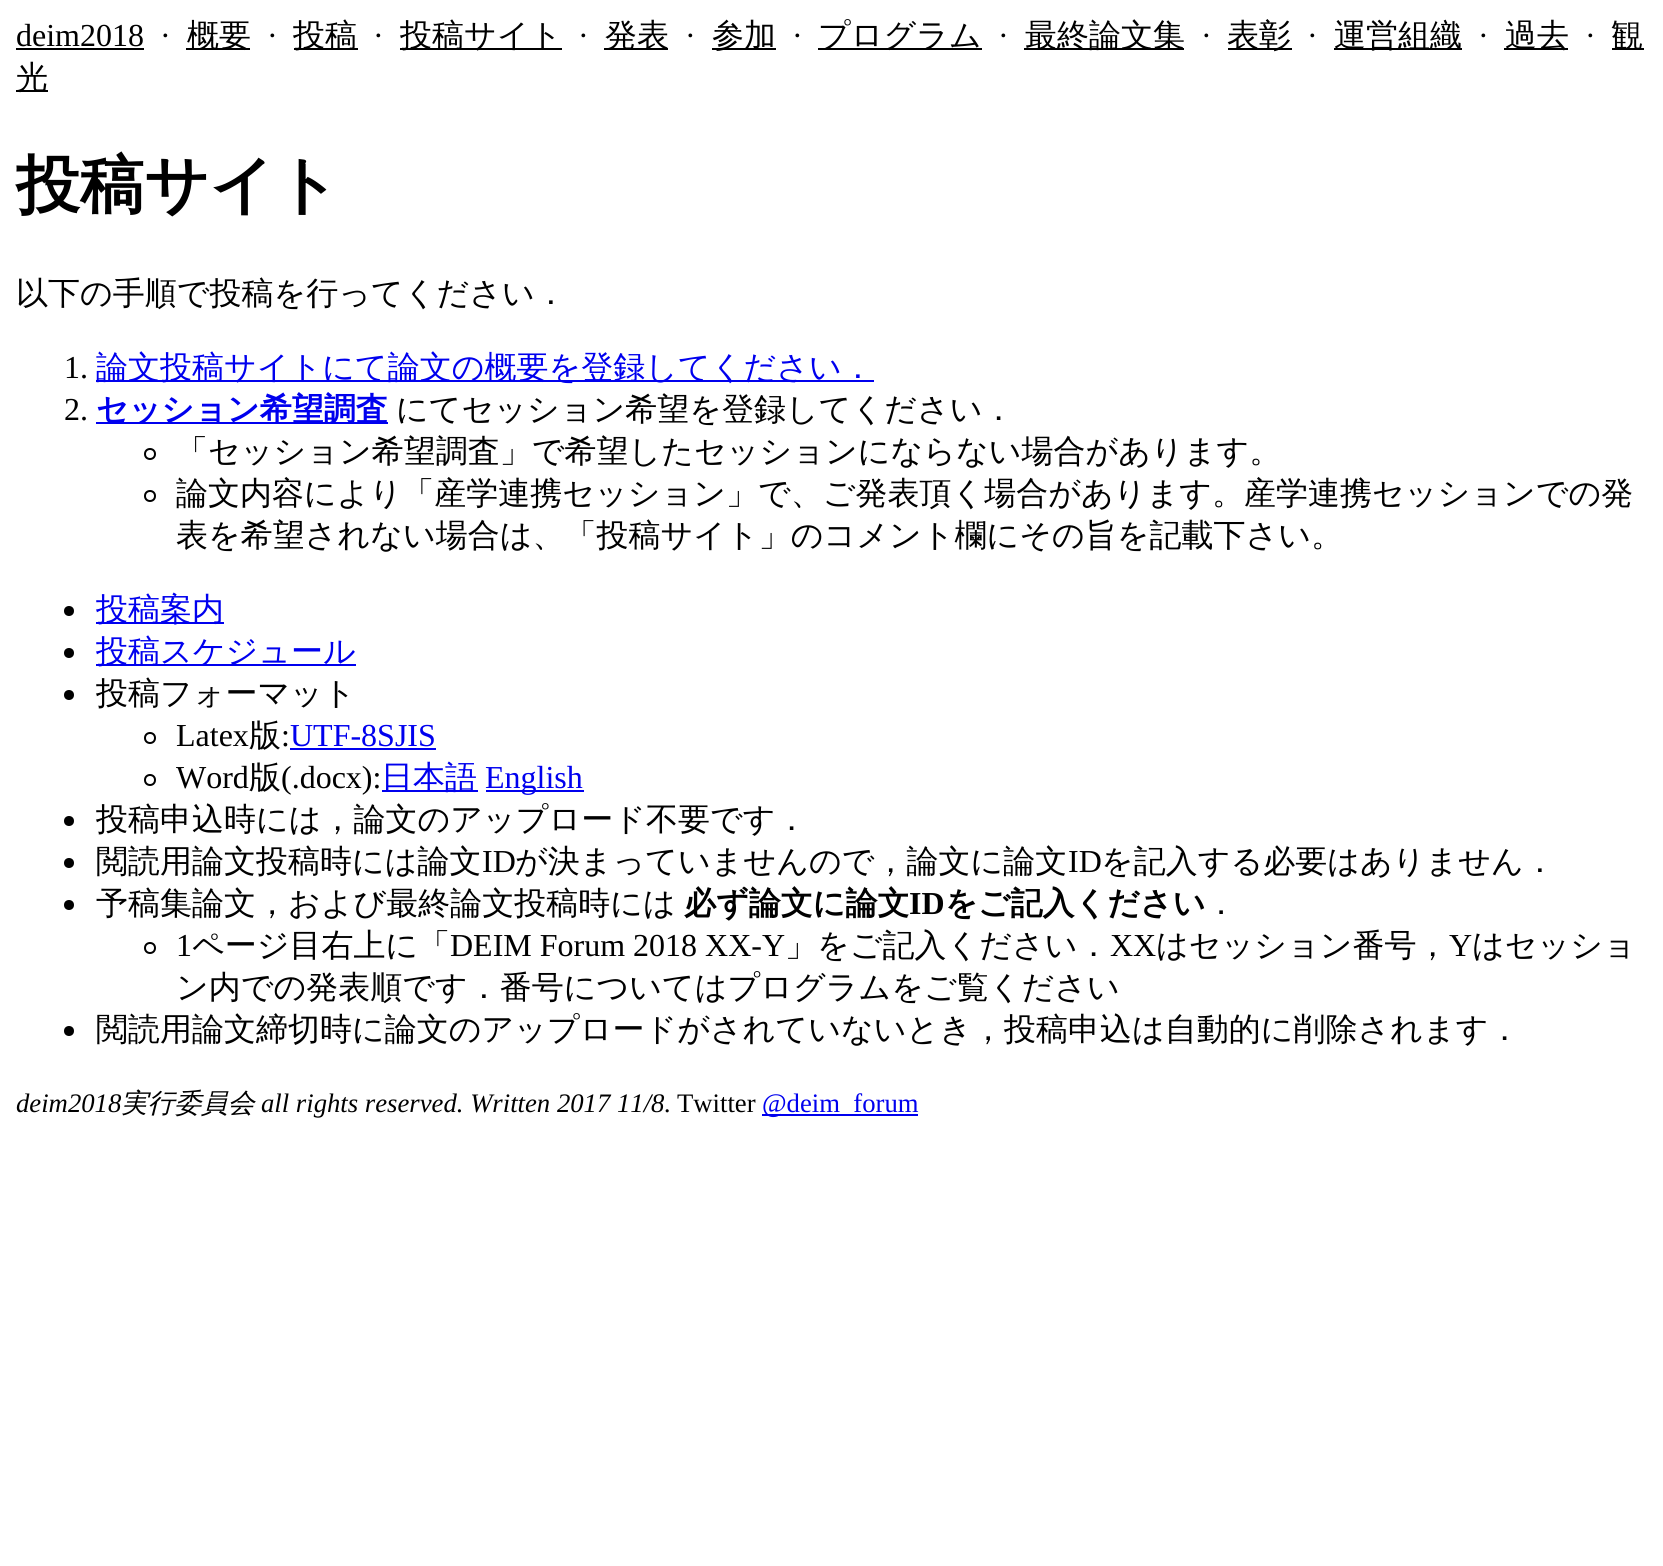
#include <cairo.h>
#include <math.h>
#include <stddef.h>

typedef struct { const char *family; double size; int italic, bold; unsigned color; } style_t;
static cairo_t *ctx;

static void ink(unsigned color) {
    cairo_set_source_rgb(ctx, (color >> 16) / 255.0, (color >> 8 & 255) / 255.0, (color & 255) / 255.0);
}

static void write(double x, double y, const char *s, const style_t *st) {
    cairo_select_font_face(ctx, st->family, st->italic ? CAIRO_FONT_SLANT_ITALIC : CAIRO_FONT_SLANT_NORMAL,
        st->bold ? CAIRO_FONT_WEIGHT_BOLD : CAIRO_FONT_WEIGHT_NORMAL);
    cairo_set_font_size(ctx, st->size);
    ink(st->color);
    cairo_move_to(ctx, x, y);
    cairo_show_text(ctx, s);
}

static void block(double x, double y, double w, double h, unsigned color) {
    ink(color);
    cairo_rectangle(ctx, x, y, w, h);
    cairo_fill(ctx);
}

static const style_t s1 = {"Liberation Serif", 32, 0, 0, 0x000000};
static const style_t s2 = {"WenQuanYi Zen Hei Medium", 32, 0, 0, 0x000000};
static const style_t s3 = {"WenQuanYi Zen Hei", 64, 0, 1, 0x000000};
static const style_t s4 = {"WenQuanYi Zen Hei Medium", 32, 0, 0, 0x0000ee};
static const style_t s5 = {"WenQuanYi Zen Hei", 32, 0, 1, 0x0000ee};
static const style_t s6 = {"Liberation Serif", 32, 0, 0, 0x0000ee};
static const style_t s7 = {"WenQuanYi Zen Hei", 32, 0, 1, 0x000000};
static const style_t s8 = {"Liberation Serif", 32, 0, 1, 0x000000};
static const style_t s9 = {"Liberation Serif", 26.7, 1, 0, 0x000000};
static const style_t s10 = {"WenQuanYi Zen Hei Medium", 26.7, 1, 0, 0x000000};
static const style_t s11 = {"Liberation Serif", 26.7, 0, 0, 0x000000};
static const style_t s12 = {"Liberation Serif", 26.7, 0, 0, 0x0000ee};

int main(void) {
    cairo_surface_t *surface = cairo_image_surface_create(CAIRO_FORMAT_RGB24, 1663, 1566);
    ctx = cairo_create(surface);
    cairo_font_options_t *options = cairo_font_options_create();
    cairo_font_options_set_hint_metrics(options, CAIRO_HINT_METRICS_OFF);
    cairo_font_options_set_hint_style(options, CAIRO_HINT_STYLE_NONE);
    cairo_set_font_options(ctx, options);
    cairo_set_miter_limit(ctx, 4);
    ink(0xffffff);
    cairo_paint(ctx);
    write(16, 46, "deim2018", &s1);
    block(16, 48, 128, 2, 0x000000);
    write(160, 46, "·", &s1);
    block(186, 48, 64, 2, 0x000000);
    write(187, 46, "概要", &s2);
    write(267, 46, "·", &s1);
    block(294, 48, 64, 2, 0x000000);
    write(293, 46, "投稿", &s2);
    write(373, 46, "·", &s1);
    block(400, 48, 162, 2, 0x000000);
    write(400, 46, "投稿サイト", &s2);
    write(578, 46, "·", &s1);
    block(604, 48, 64, 2, 0x000000);
    write(605, 46, "発表", &s2);
    write(685, 46, "·", &s1);
    block(712, 48, 64, 2, 0x000000);
    write(712, 46, "参加", &s2);
    write(792, 46, "·", &s1);
    block(818, 48, 164, 2, 0x000000);
    write(818, 46, "プログラム", &s2);
    write(998, 46, "·", &s1);
    block(1024, 48, 160, 2, 0x000000);
    write(1025, 46, "最終論文集", &s2);
    write(1201, 46, "·", &s1);
    block(1228, 48, 64, 2, 0x000000);
    write(1227, 46, "表彰", &s2);
    write(1307, 46, "·", &s1);
    block(1334, 48, 128, 2, 0x000000);
    write(1334, 46, "運営組織", &s2);
    write(1478, 46, "·", &s1);
    block(1504, 48, 64, 2, 0x000000);
    write(1505, 46, "過去", &s2);
    write(1585, 46, "·", &s1);
    block(1612, 48, 32, 2, 0x000000);
    write(1611, 46, "観", &s2);
    block(16, 90, 32, 2, 0x000000);
    write(16, 88, "光", &s2);
    write(16, 207, "投稿サイト", &s3);
    write(16, 304, "以下の手順で投稿を行ってください．", &s2);
    write(64, 378, "1.", &s1);
    block(96, 380, 778, 2, 0x0000ee);
    write(96, 378, "論文投稿サイトにて論文の概要を登録してください．", &s4);
    write(64, 420, "2.", &s1);
    block(96, 422, 292, 2, 0x0000ee);
    write(96, 420, "セッション希望調査", &s5);
    write(396, 420, "にてセッション希望を登録してください．", &s2);
    cairo_new_path(ctx);
    cairo_arc(ctx, 150, 454, 5, 0, 2 * M_PI);
    cairo_stroke(ctx);
    write(176, 462, "「セッション希望調査」で希望したセッションにならない場合があります。", &s2);
    cairo_new_path(ctx);
    cairo_arc(ctx, 150, 496, 5, 0, 2 * M_PI);
    cairo_stroke(ctx);
    write(176, 504, "論文内容により「産学連携セッション」で、ご発表頂く場合があります。産学連携セッションでの発", &s2);
    write(176, 546, "表を希望されない場合は、「投稿サイト」のコメント欄にその旨を記載下さい。", &s2);
    cairo_new_path(ctx);
    cairo_arc(ctx, 69, 611, 5, 0, 2 * M_PI);
    cairo_fill(ctx);
    block(96, 622, 128, 2, 0x0000ee);
    write(96, 620, "投稿案内", &s4);
    ink(0x000000);
    cairo_new_path(ctx);
    cairo_arc(ctx, 69, 653, 5, 0, 2 * M_PI);
    cairo_fill(ctx);
    block(96, 664, 260, 2, 0x0000ee);
    write(96, 662, "投稿スケジュール", &s4);
    ink(0x000000);
    cairo_new_path(ctx);
    cairo_arc(ctx, 69, 695, 5, 0, 2 * M_PI);
    cairo_fill(ctx);
    write(96, 704, "投稿フォーマット", &s2);
    cairo_new_path(ctx);
    cairo_arc(ctx, 150, 738, 5, 0, 2 * M_PI);
    cairo_stroke(ctx);
    write(176, 746, "Latex", &s1);
    write(249, 746, "版", &s2);
    write(281, 746, ":", &s1);
    write(290, 746, "UTF-8SJIS", &s6);
    block(290, 748, 146, 2, 0x0000ee);
    cairo_new_path(ctx);
    cairo_arc(ctx, 150, 780, 5, 0, 2 * M_PI);
    ink(0x000000);
    cairo_stroke(ctx);
    write(176, 788, "Word", &s1);
    write(249, 788, "版", &s2);
    write(281, 788, "(.docx):", &s1);
    block(382, 790, 96, 2, 0x0000ee);
    write(381, 788, "日本語", &s4);
    block(486, 790, 98, 2, 0x0000ee);
    write(485, 788, "English", &s6);
    ink(0x000000);
    cairo_new_path(ctx);
    cairo_arc(ctx, 69, 821, 5, 0, 2 * M_PI);
    cairo_fill(ctx);
    write(96, 830, "投稿申込時には，論文のアップロード不要です．", &s2);
    cairo_new_path(ctx);
    cairo_arc(ctx, 69, 863, 5, 0, 2 * M_PI);
    cairo_fill(ctx);
    write(96, 872, "閲読用論文投稿時には論文", &s2);
    write(482, 872, "ID", &s1);
    write(515, 872, "が決まっていませんので，論文に論文", &s2);
    write(1068, 872, "ID", &s1);
    write(1101, 872, "を記入する必要はありません．", &s2);
    cairo_new_path(ctx);
    cairo_arc(ctx, 69, 905, 5, 0, 2 * M_PI);
    cairo_fill(ctx);
    write(96, 914, "予稿集論文，および最終論文投稿時には", &s2);
    write(684, 914, "必ず論文に論文", &s7);
    write(909, 914, "ID", &s8);
    write(945, 914, "をご記入ください", &s7);
    write(1205, 914, "．", &s2);
    cairo_new_path(ctx);
    cairo_arc(ctx, 150, 948, 5, 0, 2 * M_PI);
    cairo_stroke(ctx);
    write(176, 956, "1", &s1);
    write(192, 956, "ページ目右上に「", &s2);
    write(450, 956, "DEIM Forum 2018 XX-Y", &s1);
    write(785, 956, "」をご記入ください．", &s2);
    write(1110, 956, "XX", &s1);
    write(1156, 956, "はセッション番号，", &s2);
    write(1449, 956, "Y", &s1);
    write(1472, 956, "はセッショ", &s2);
    write(176, 998, "ン内での発表順です．番号についてはプログラムをご覧ください", &s2);
    cairo_new_path(ctx);
    cairo_arc(ctx, 69, 1031, 5, 0, 2 * M_PI);
    cairo_fill(ctx);
    write(96, 1040, "閲読用論文締切時に論文のアップロードがされていないとき，投稿申込は自動的に削除されます．", &s2);
    write(16, 1112, "deim2018", &s9);
    write(121, 1112, "実行委員会", &s10);
    write(261, 1112, "all rights reserved. Written 2017 11/8.", &s9);
    write(677, 1112, "Twitter", &s11);
    block(762, 1114, 156, 2, 0x0000ee);
    write(762, 1112, "@deim_forum", &s12);
    cairo_surface_write_to_png(surface, "screenshot.png");
    cairo_font_options_destroy(options);
    cairo_destroy(ctx);
    cairo_surface_destroy(surface);
    return 0;
}
